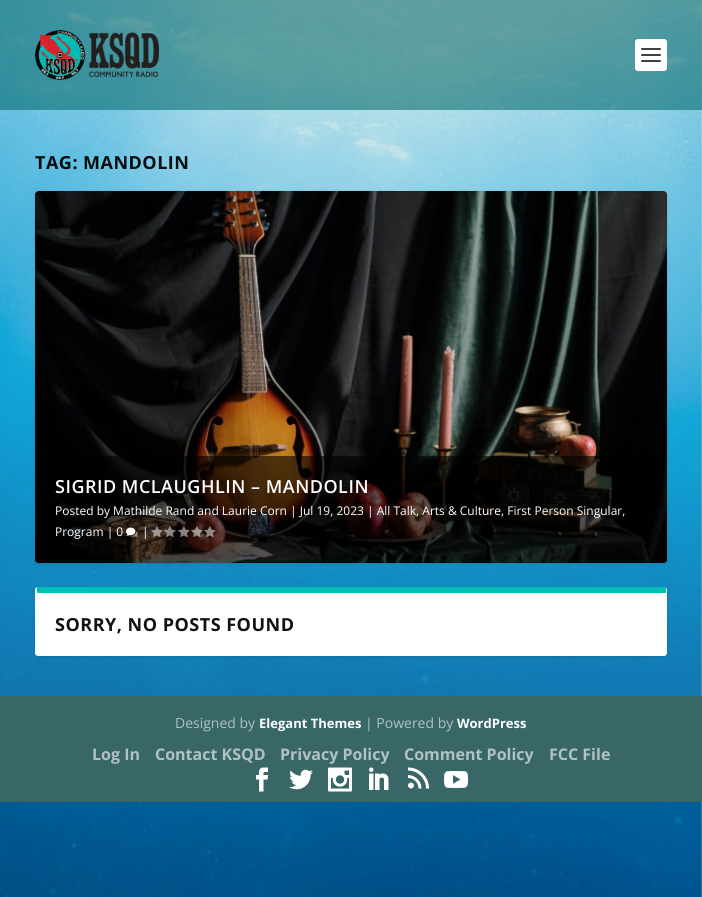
#include <cairo.h>
#include <math.h>
#include <stddef.h>

typedef struct { const char *family; double size; int italic, bold; unsigned color; } style_t;
static cairo_t *ctx;

static void ink(unsigned color) {
    cairo_set_source_rgb(ctx, (color >> 16) / 255.0, (color >> 8 & 255) / 255.0, (color & 255) / 255.0);
}

static void write(double x, double y, const char *s, const style_t *st) {
    cairo_select_font_face(ctx, st->family, st->italic ? CAIRO_FONT_SLANT_ITALIC : CAIRO_FONT_SLANT_NORMAL,
        st->bold ? CAIRO_FONT_WEIGHT_BOLD : CAIRO_FONT_WEIGHT_NORMAL);
    cairo_set_font_size(ctx, st->size);
    ink(st->color);
    cairo_move_to(ctx, x, y);
    cairo_show_text(ctx, s);
}

static void write_spaced(double x, double y, const char *s, double letter, double word) {
    cairo_move_to(ctx, x, y);
    while (*s) {
        char ch[5] = {0};
        int n = 0;
        do ch[n++] = *s++; while ((*s & 0xC0) == 0x80);
        cairo_show_text(ctx, ch);
        cairo_rel_move_to(ctx, letter + word * (*ch == ' '), 0);
    }
}

static void block(double x, double y, double w, double h, unsigned color) {
    ink(color);
    cairo_rectangle(ctx, x, y, w, h);
    cairo_fill(ctx);
}

static void round_path(double x, double y, double w, double h, double r) {
    cairo_new_sub_path(ctx);
    cairo_arc(ctx, x + w - r, y + h - r, r, 0, M_PI / 2);
    cairo_arc(ctx, x + r, y + h - r, r, M_PI / 2, M_PI);
    cairo_arc(ctx, x + r, y + r, r, M_PI, 1.5 * M_PI);
    cairo_arc(ctx, x + w - r, y + r, r, 1.5 * M_PI, 2 * M_PI);
    cairo_close_path(ctx);
}

static void blur_box(double x, double y, double w, double h, double r, double blur, double alpha) {
    cairo_push_group_with_content(ctx, CAIRO_CONTENT_ALPHA);
    cairo_set_operator(ctx, CAIRO_OPERATOR_SOURCE);
    for (int i = 15; i >= -15 && fmin(w, h) + blur * i / 3 > 0; i -= 2) {
        double e = blur * i / 6;
        cairo_set_source_rgba(ctx, 0, 0, 0, alpha * erfc((i - 1) / 8.5) / 2);
        round_path(x - e, y - e, w + 2 * e, h + 2 * e, fmax(0, fmin(r + e + blur * .6, fmin(w, h) / 2 + e)));
        cairo_fill(ctx);
    }
    cairo_pattern_t *soft = cairo_pop_group(ctx);
    cairo_mask(ctx, soft);
    cairo_pattern_destroy(soft);
}

static void paste(const char *path, double x, double y, double w, double h) {
    cairo_surface_t *image = cairo_image_surface_create_from_png(path);
    cairo_save(ctx);
    cairo_set_source_surface(ctx, image, x, y);
    cairo_rectangle(ctx, x, y, w, h);
    cairo_fill(ctx);
    cairo_restore(ctx);
    cairo_surface_destroy(image);
}

static const style_t s1 = {"Open Sans", 12, 0, 0, 0xffffff};
static const style_t s2 = {"Open Sans", 14, 0, 0, 0xb0c2c3};
static const style_t s3 = {"Open Sans", 13, 0, 1, 0xffffff};
static const style_t s4 = {"Open Sans", 16, 0, 1, 0xb0c2c3};

int main(void) {
    cairo_surface_t *surface = cairo_image_surface_create(CAIRO_FORMAT_RGB24, 702, 897);
    ctx = cairo_create(surface);
    cairo_font_options_t *options = cairo_font_options_create();
    cairo_font_options_set_hint_metrics(options, CAIRO_HINT_METRICS_OFF);
    cairo_font_options_set_hint_style(options, CAIRO_HINT_STYLE_NONE);
    cairo_set_font_options(ctx, options);
    cairo_set_miter_limit(ctx, 4);
    ink(0xffffff);
    cairo_paint(ctx);
    paste("pic1.png", 0, 0, 702, 897);
    cairo_set_source_rgba(ctx, 1, 1, 1, 0.07);
    cairo_rectangle(ctx, 0, 0, 702, 696);
    cairo_fill(ctx);
    cairo_set_source_rgba(ctx, 0, 0.4, 0.408, 0.56);
    cairo_rectangle(ctx, 0, 0, 702, 110);
    cairo_fill(ctx);
    paste("pic2.png", 35, 30, 124, 50);
    ink(0xffffff);
    round_path(635, 39, 32, 32, 3);
    cairo_fill(ctx);
    ink(0x404040);
    round_path(641, 48, 20, 2, 1);
    cairo_fill(ctx);
    round_path(641, 54, 20, 2, 1);
    cairo_fill(ctx);
    round_path(641, 60, 20, 2, 1);
    cairo_fill(ctx);
    cairo_select_font_face(ctx, "Open Sans", CAIRO_FONT_SLANT_NORMAL, CAIRO_FONT_WEIGHT_BOLD);
    cairo_set_font_size(ctx, 18);
    ink(0x070d10);
    write_spaced(35, 169, "TAG:", 0.5, 0);
    write_spaced(83, 169, "MANDOLIN", 0.5, 0);
    ink(0x000000);
    blur_box(35, 192, 632, 372, 3, 1.5, 0.1);
    ink(0xffffff);
    round_path(35, 191, 632, 372, 3);
    cairo_fill(ctx);
    paste("pic3.png", 35, 191, 632, 372);
    cairo_set_source_rgba(ctx, 0, 0, 0, 0.6);
    cairo_new_path(ctx);
    cairo_move_to(ctx, 35, 456);
    cairo_line_to(ctx, 667, 456);
    cairo_line_to(ctx, 667, 560);
    cairo_curve_to(ctx, 667, 561.5, 665.5, 563, 664, 563);
    cairo_line_to(ctx, 38, 563);
    cairo_curve_to(ctx, 36.5, 563, 35, 561.5, 35, 560);
    cairo_close_path(ctx);
    cairo_fill(ctx);
    cairo_select_font_face(ctx, "Open Sans SemiBold", CAIRO_FONT_SLANT_NORMAL, CAIRO_FONT_WEIGHT_NORMAL);
    ink(0xffffff);
    write_spaced(55, 493, "SIGRID MCLAUGHLIN – MANDOLIN", 0.5, 0);
    write(55, 515, "Posted by Mathilde Rand and Laurie Corn | Jul 19, 2023 | All Talk, Arts & Culture, First Person Singular,", &s1);
    write(55, 536, "Program | 0", &s1);
    paste("pic4.png", 126, 527, 12, 10);
    write(142, 536, "|", &s1);
    paste("pic5.png", 151, 526, 12, 12);
    paste("pic6.png", 164, 526, 12, 12);
    paste("pic7.png", 178, 526, 12, 12);
    paste("pic8.png", 191, 526, 12, 12);
    paste("pic9.png", 204, 526, 12, 12);
    ink(0x000000);
    blur_box(35, 588, 632, 69, 3, 1.5, 0.1);
    ink(0xffffff);
    round_path(35, 587, 632, 69, 3);
    cairo_fill(ctx);
    block(37, 587, 629, 6, 0x00c0b5);
    cairo_select_font_face(ctx, "Open Sans", CAIRO_FONT_SLANT_NORMAL, CAIRO_FONT_WEIGHT_BOLD);
    cairo_set_font_size(ctx, 18);
    ink(0x121212);
    write_spaced(55, 631, "SORRY, NO POSTS FOUND", 0.5, 0);
    block(0, 696, 702, 106, 0x396768);
    write(175, 728, "Designed by", &s2);
    write(259, 728, "Elegant Themes", &s3);
    write(365, 728, "| Powered by", &s2);
    write(457, 728, "WordPress", &s3);
    write(92, 760, "Log In", &s4);
    write(155, 760, "Contact KSQD", &s4);
    write(280, 760, "Privacy Policy", &s4);
    write(404, 760, "Comment Policy", &s4);
    write(549, 760, "FCC File", &s4);
    paste("pic10.png", 256, 767, 13, 25);
    paste("pic11.png", 289, 769, 24, 21);
    paste("pic12.png", 328, 767, 24, 25);
    paste("pic13.png", 369, 767, 20, 23);
    paste("pic14.png", 408, 767, 21, 22);
    paste("pic15.png", 444, 771, 24, 17);
    cairo_surface_write_to_png(surface, "screenshot.png");
    cairo_font_options_destroy(options);
    cairo_destroy(ctx);
    cairo_surface_destroy(surface);
    return 0;
}
